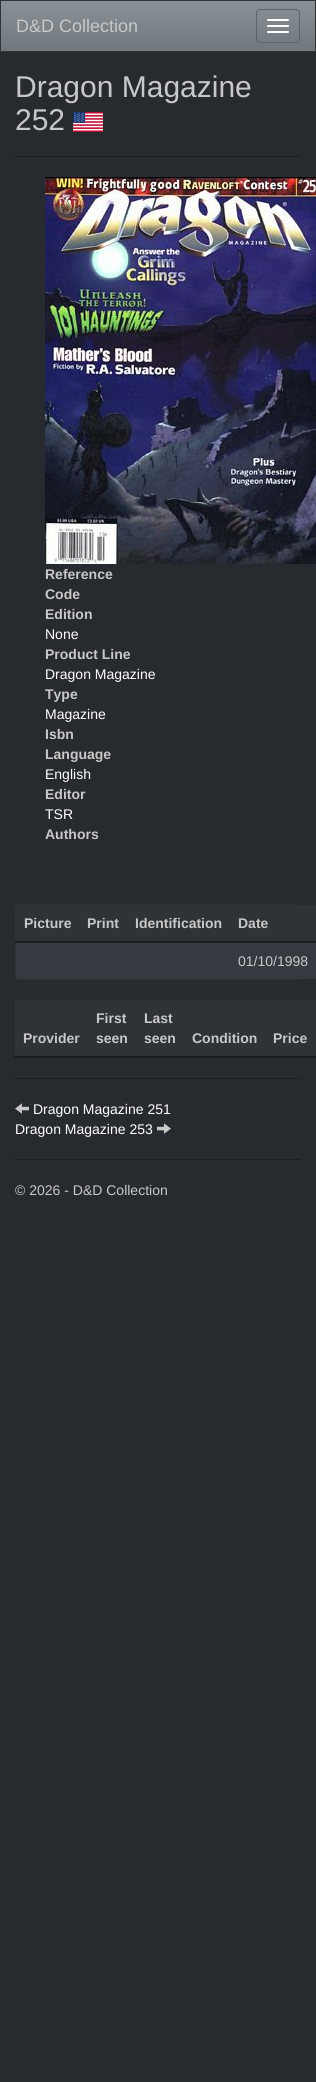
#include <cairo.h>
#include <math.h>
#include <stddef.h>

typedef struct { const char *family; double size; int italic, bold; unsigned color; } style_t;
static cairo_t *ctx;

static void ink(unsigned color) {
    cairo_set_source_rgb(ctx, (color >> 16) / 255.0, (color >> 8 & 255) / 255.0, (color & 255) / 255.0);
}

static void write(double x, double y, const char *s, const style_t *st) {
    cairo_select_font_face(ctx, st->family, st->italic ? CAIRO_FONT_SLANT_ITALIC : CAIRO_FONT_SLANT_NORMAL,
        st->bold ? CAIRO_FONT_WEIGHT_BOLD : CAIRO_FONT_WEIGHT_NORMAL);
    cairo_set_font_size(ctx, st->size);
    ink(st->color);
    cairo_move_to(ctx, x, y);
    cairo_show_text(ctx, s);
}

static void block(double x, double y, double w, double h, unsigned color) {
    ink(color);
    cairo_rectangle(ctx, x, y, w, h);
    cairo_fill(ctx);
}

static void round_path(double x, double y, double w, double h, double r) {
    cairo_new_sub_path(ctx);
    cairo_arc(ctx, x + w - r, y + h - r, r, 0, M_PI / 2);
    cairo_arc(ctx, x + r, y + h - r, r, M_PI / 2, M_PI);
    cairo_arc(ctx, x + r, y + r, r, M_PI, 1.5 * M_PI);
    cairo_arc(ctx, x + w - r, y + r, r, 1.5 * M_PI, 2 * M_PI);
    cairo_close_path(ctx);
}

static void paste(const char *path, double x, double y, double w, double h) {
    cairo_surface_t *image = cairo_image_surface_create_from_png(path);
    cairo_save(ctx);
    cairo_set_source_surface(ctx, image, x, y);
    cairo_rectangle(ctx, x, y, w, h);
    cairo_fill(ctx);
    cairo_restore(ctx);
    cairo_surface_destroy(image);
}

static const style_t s1 = {"Liberation Sans", 18, 0, 0, 0xc8c8c8};
static const style_t s2 = {"Liberation Sans", 30, 0, 0, 0xc8c8c8};
static const style_t s3 = {"Liberation Sans", 14, 0, 1, 0xc8c8c8};
static const style_t s4 = {"Liberation Sans", 14, 0, 0, 0xffffff};
static const style_t s5 = {"Liberation Sans", 14, 0, 0, 0xc8c8c8};

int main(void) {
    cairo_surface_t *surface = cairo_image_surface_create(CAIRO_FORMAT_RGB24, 316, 2082);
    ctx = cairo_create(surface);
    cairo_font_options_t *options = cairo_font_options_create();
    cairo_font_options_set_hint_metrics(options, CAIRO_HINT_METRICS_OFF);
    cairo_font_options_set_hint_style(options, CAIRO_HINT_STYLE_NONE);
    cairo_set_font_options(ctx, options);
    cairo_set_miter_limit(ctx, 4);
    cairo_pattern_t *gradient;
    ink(0x272b30);
    cairo_paint(ctx);
    gradient = cairo_pattern_create_linear(158, 1, 158, 51);
    cairo_pattern_add_color_stop_rgba(gradient, 0, 0.541, 0.569, 0.588, 1);
    cairo_pattern_add_color_stop_rgba(gradient, 0.6, 0.478, 0.51, 0.533, 1);
    cairo_pattern_add_color_stop_rgba(gradient, 1, 0.439, 0.471, 0.49, 1);
    cairo_set_source(ctx, gradient);
    cairo_pattern_destroy(gradient);
    cairo_rectangle(ctx, 1, 1, 314, 50);
    cairo_fill(ctx);
    cairo_rectangle(ctx, 0.5, 0.5, 315, 51);
    ink(0x313436);
    cairo_set_line_width(ctx, 1);
    cairo_stroke(ctx);
    write(16, 32, "D&D Collection", &s1);
    round_path(256.5, 9.5, 43, 33, 3.5);
    ink(0x5d6368);
    cairo_stroke(ctx);
    ink(0xffffff);
    round_path(267, 19, 22, 2, 1);
    cairo_fill(ctx);
    round_path(267, 25, 22, 2, 1);
    cairo_fill(ctx);
    round_path(267, 31, 22, 2, 1);
    cairo_fill(ctx);
    write(15, 97, "Dragon Magazine", &s2);
    write(15, 130, "252", &s2);
    paste("pic1.png", 73, 112, 30, 20);
    block(15, 156, 286, 1, 0x1c1e22);
    paste("pic2.png", 45, 177, 271, 387);
    write(45, 579, "Reference", &s3);
    write(45, 599, "Code", &s3);
    write(45, 619, "Edition", &s3);
    write(45, 639, "None", &s4);
    write(45, 659, "Product Line", &s3);
    write(45, 679, "Dragon Magazine", &s4);
    write(45, 699, "Type", &s3);
    write(45, 719, "Magazine", &s4);
    write(45, 739, "Isbn", &s3);
    write(45, 759, "Language", &s3);
    write(45, 779, "English", &s4);
    write(45, 799, "Editor", &s3);
    write(45, 819, "TSR", &s4);
    write(45, 839, "Authors", &s3);
    ink(0x2e3338);
    round_path(15, 904, 286, 76, 4);
    cairo_fill(ctx);
    round_path(16, 905, 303, 74, 3);
    cairo_fill(ctx);
    write(24, 928, "Picture", &s3);
    write(87, 928, "Print", &s3);
    write(135, 928, "Identification", &s3);
    ink(0x353a41);
    cairo_new_path(ctx);
    cairo_move_to(ctx, 16, 942);
    cairo_line_to(ctx, 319, 942);
    cairo_line_to(ctx, 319, 976);
    cairo_curve_to(ctx, 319, 977.5, 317.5, 979, 316, 979);
    cairo_line_to(ctx, 19, 979);
    cairo_curve_to(ctx, 17.5, 979, 16, 977.5, 16, 976);
    cairo_close_path(ctx);
    cairo_fill(ctx);
    block(15, 941, 301, 2, 0x1c1e22);
    write(238, 928, "Date", &s3);
    write(238, 966, "01/10/1998", &s5);
    block(15, 1000, 301, 56, 0x2e3338);
    write(23, 1043, "Provider", &s3);
    write(96, 1023, "First", &s3);
    write(96, 1043, "seen", &s3);
    write(144, 1023, "Last", &s3);
    write(144, 1043, "seen", &s3);
    write(192, 1043, "Condition", &s3);
    block(14, 1056, 302, 2, 0x1c1e22);
    write(273, 1043, "Price", &s3);
    block(15, 1078, 286, 1, 0x1c1e22);
    paste("pic3.png", 15, 1103, 14, 11);
    write(33, 1114, "Dragon Magazine 251", &s4);
    write(15, 1134, "Dragon Magazine 253", &s4);
    paste("pic4.png", 157, 1123, 14, 11);
    block(15, 1159, 286, 1, 0x1c1e22);
    write(15, 1195, "© 2026 - D&D Collection", &s5);
    cairo_surface_write_to_png(surface, "screenshot.png");
    cairo_font_options_destroy(options);
    cairo_destroy(ctx);
    cairo_surface_destroy(surface);
    return 0;
}
